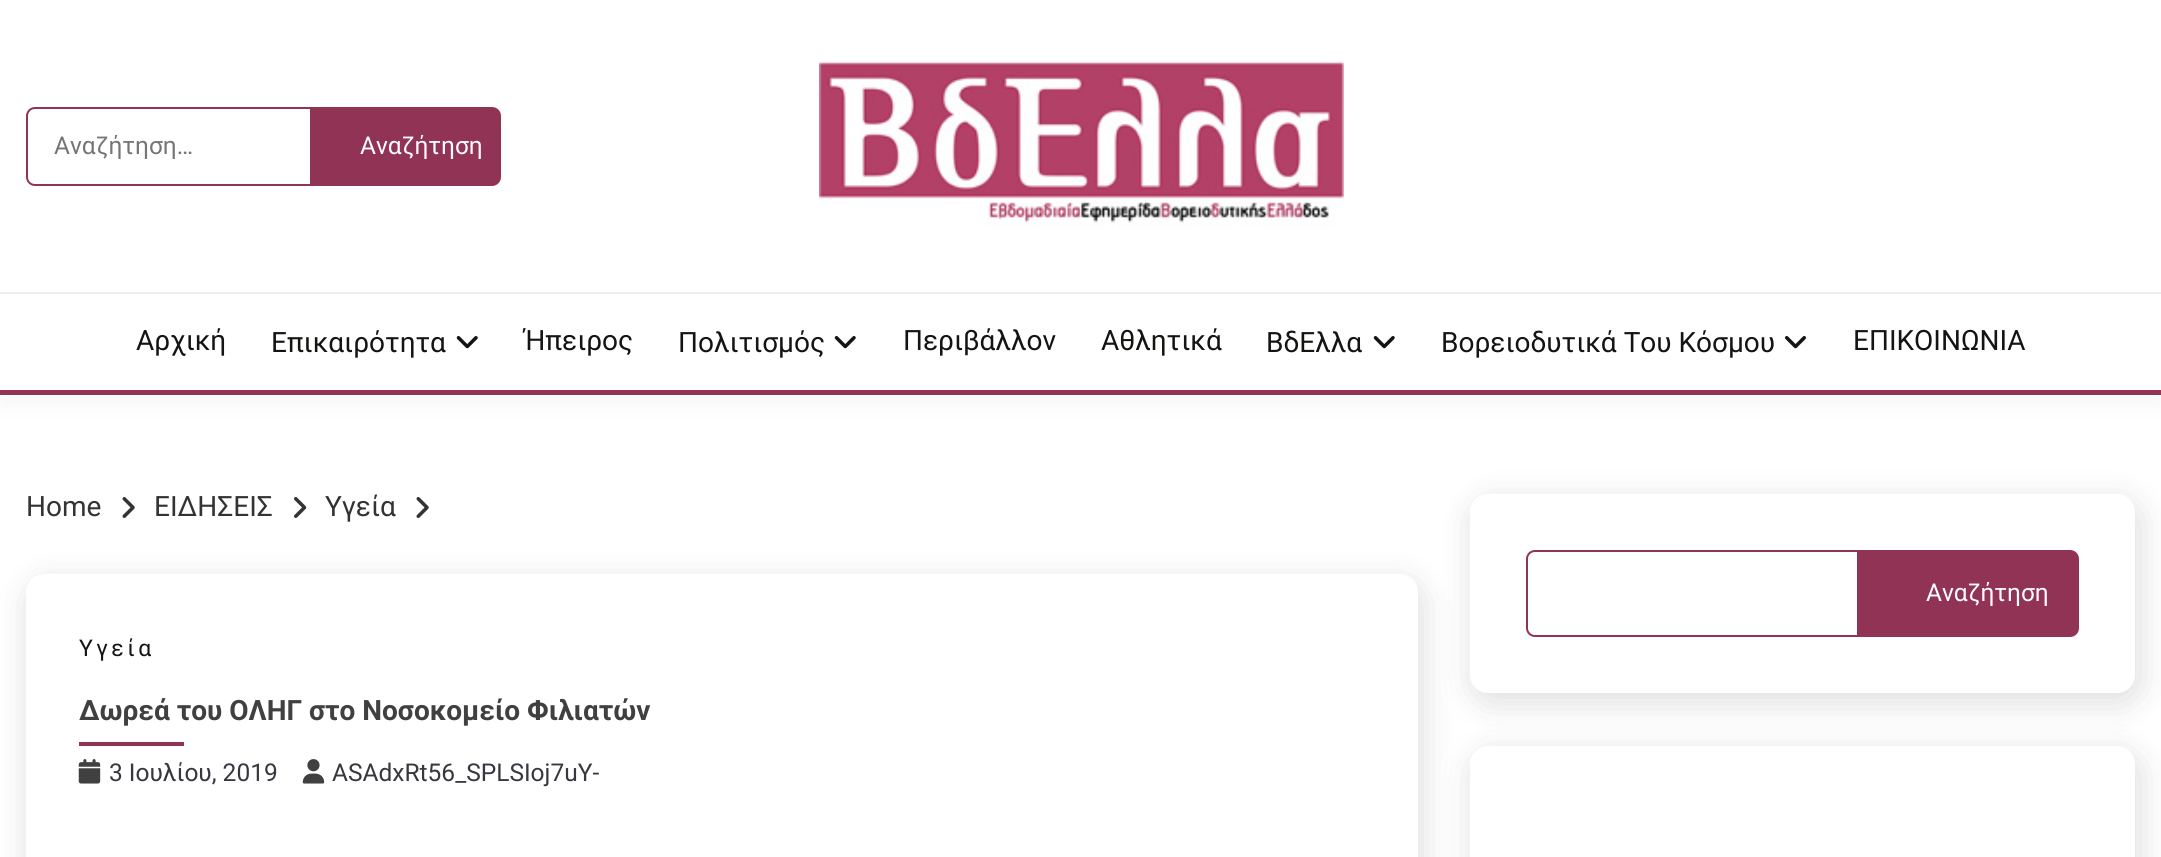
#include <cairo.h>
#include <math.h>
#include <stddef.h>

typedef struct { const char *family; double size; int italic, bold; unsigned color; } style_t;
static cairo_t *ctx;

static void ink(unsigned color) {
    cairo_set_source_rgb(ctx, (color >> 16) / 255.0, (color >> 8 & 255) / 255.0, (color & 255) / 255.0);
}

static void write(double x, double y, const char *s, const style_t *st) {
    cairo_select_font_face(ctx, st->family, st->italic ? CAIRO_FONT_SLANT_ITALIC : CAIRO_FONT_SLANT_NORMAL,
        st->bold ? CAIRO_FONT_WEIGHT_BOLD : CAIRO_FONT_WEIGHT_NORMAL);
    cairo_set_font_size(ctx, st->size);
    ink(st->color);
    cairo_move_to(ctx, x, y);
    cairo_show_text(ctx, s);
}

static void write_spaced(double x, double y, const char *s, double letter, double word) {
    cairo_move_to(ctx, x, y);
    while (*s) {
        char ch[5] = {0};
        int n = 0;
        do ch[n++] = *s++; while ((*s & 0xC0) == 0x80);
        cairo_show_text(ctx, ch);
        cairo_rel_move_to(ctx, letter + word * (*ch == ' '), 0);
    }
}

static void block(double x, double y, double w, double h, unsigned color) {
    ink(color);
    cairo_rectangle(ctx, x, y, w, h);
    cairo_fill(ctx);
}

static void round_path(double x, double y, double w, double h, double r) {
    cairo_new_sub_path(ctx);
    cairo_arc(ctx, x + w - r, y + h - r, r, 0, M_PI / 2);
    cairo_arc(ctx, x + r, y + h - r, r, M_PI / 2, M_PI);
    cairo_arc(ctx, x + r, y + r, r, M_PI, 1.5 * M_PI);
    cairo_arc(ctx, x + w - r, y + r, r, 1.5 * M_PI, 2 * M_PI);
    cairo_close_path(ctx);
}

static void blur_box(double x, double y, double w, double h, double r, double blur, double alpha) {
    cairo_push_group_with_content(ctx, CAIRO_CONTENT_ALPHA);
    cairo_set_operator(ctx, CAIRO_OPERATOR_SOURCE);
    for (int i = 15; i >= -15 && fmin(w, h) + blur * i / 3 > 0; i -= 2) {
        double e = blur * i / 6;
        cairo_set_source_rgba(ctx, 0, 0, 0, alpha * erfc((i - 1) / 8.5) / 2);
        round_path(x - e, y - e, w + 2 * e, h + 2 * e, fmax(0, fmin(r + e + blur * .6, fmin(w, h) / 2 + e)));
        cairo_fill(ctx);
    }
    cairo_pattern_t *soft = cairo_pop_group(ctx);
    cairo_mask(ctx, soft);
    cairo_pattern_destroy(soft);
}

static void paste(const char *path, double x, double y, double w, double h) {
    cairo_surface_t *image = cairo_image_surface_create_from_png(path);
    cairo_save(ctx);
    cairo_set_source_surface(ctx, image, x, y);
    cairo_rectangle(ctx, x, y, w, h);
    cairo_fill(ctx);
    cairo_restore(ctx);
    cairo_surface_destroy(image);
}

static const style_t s1 = {"Roboto", 24.5, 0, 0, 0x757575};
static const style_t s2 = {"Roboto", 24.5, 0, 0, 0xffffff};
static const style_t s3 = {"Roboto", 28, 0, 0, 0x141413};
static const style_t s4 = {"Roboto", 28, 0, 0, 0x333333};
static const style_t s5 = {"Roboto", 28, 0, 1, 0x404040};
static const style_t s6 = {"Roboto", 24.5, 0, 0, 0x37373f};

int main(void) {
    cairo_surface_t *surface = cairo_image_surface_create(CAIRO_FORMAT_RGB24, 2161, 857);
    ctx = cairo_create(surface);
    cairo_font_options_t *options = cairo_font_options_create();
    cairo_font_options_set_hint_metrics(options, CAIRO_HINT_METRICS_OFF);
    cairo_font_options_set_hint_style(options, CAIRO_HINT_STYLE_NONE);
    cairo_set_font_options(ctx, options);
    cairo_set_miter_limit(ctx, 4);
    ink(0xffffff);
    cairo_paint(ctx);
    ink(0x000000);
    blur_box(0, 9, 2161, 395, 0, 13, 0.04);
    block(0, 0, 2161, 396, 0xffffff);
    block(0, 292, 2161, 2, 0xeeeeee);
    cairo_new_path(ctx);
    cairo_move_to(ctx, 35, 108);
    cairo_line_to(ctx, 311, 108);
    cairo_line_to(ctx, 311, 185);
    cairo_line_to(ctx, 35, 185);
    cairo_curve_to(ctx, 30.5, 185, 27, 181.5, 27, 177);
    cairo_line_to(ctx, 27, 116);
    cairo_curve_to(ctx, 27, 111.5, 30.5, 108, 35, 108);
    cairo_close_path(ctx);
    ink(0x913354);
    cairo_stroke(ctx);
    write(54, 154, "Αναζήτηση…", &s1);
    ink(0x913354);
    cairo_new_path(ctx);
    cairo_move_to(ctx, 312, 107);
    cairo_line_to(ctx, 492, 107);
    cairo_curve_to(ctx, 497, 107, 501, 111, 501, 116);
    cairo_line_to(ctx, 501, 177);
    cairo_curve_to(ctx, 501, 182, 497, 186, 492, 186);
    cairo_line_to(ctx, 312, 186);
    cairo_close_path(ctx);
    cairo_fill(ctx);
    write(360, 154, "Αναζήτηση", &s2);
    paste("pic1.png", 819, 61, 525, 168);
    block(0, 390, 2161, 5, 0x913354);
    write(136, 350, "Αρχική", &s3);
    write(271, 352, "Επικαιρότητα", &s3);
    paste("pic2.png", 456, 336, 22, 13);
    write(524, 350, "Ήπειρος", &s3);
    write(678, 352, "Πολιτισμός", &s3);
    paste("pic2.png", 834, 336, 22, 13);
    write(903, 350, "Περιβάλλον", &s3);
    write(1101, 350, "Αθλητικά", &s3);
    write(1266, 352, "ΒδΕλλα", &s3);
    paste("pic2.png", 1373, 336, 22, 13);
    write(1441, 352, "Βορειοδυτικά Του Κόσμου", &s3);
    paste("pic3.png", 1785, 336, 21, 13);
    write(1853, 350, "ΕΠΙΚΟΙΝΩΝΙΑ", &s3);
    write(26, 516, "Home", &s4);
    paste("pic4.png", 122, 497, 13, 21);
    write(154, 516, "ΕΙΔΗΣΕΙΣ", &s4);
    paste("pic5.png", 294, 497, 13, 21);
    write(325, 516, "Υγεία", &s4);
    paste("pic4.png", 416, 497, 13, 21);
    ink(0x000000);
    blur_box(30, 583, 1391, 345, 18, 17.5, 0.14);
    ink(0xffffff);
    round_path(26, 574, 1392, 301, 18);
    cairo_fill(ctx);
    cairo_set_font_size(ctx, 23);
    ink(0x141413);
    write_spaced(79, 656, "Υγεία", 3.5, 0);
    write(79, 720, "Δωρεά του ΟΛΗΓ στο Νοσοκομείο Φιλιατών", &s5);
    block(79, 742, 105, 4, 0x913354);
    paste("pic6.png", 78, 759, 23, 25);
    write(109, 781, "3 Ιουλίου, 2019", &s6);
    paste("pic7.png", 302, 759, 23, 25);
    write(332, 781, "ASAdxRt56_SPLSIoj7uY-", &s6);
    ink(0x000000);
    blur_box(1474, 502, 665, 200, 18, 17.5, 0.14);
    ink(0xffffff);
    round_path(1470, 494, 665, 199, 18);
    cairo_fill(ctx);
    cairo_new_path(ctx);
    cairo_move_to(ctx, 1535, 551);
    cairo_line_to(ctx, 1858, 551);
    cairo_line_to(ctx, 1858, 636);
    cairo_line_to(ctx, 1535, 636);
    cairo_curve_to(ctx, 1530.5, 636, 1527, 632.5, 1527, 628);
    cairo_line_to(ctx, 1527, 559);
    cairo_curve_to(ctx, 1527, 554.5, 1530.5, 551, 1535, 551);
    cairo_close_path(ctx);
    ink(0x913354);
    cairo_stroke(ctx);
    cairo_new_path(ctx);
    cairo_move_to(ctx, 1860, 551);
    cairo_line_to(ctx, 2070, 551);
    cairo_curve_to(ctx, 2074.5, 551, 2078, 554.5, 2078, 559);
    cairo_line_to(ctx, 2078, 628);
    cairo_curve_to(ctx, 2078, 632.5, 2074.5, 636, 2070, 636);
    cairo_line_to(ctx, 1860, 636);
    cairo_close_path(ctx);
    cairo_fill_preserve(ctx);
    cairo_stroke(ctx);
    write(1926, 601, "Αναζήτηση", &s2);
    ink(0x000000);
    blur_box(1474, 754, 665, 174, 18, 17.5, 0.14);
    ink(0xffffff);
    round_path(1470, 746, 665, 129, 18);
    cairo_fill(ctx);
    cairo_surface_write_to_png(surface, "screenshot.png");
    cairo_font_options_destroy(options);
    cairo_destroy(ctx);
    cairo_surface_destroy(surface);
    return 0;
}
